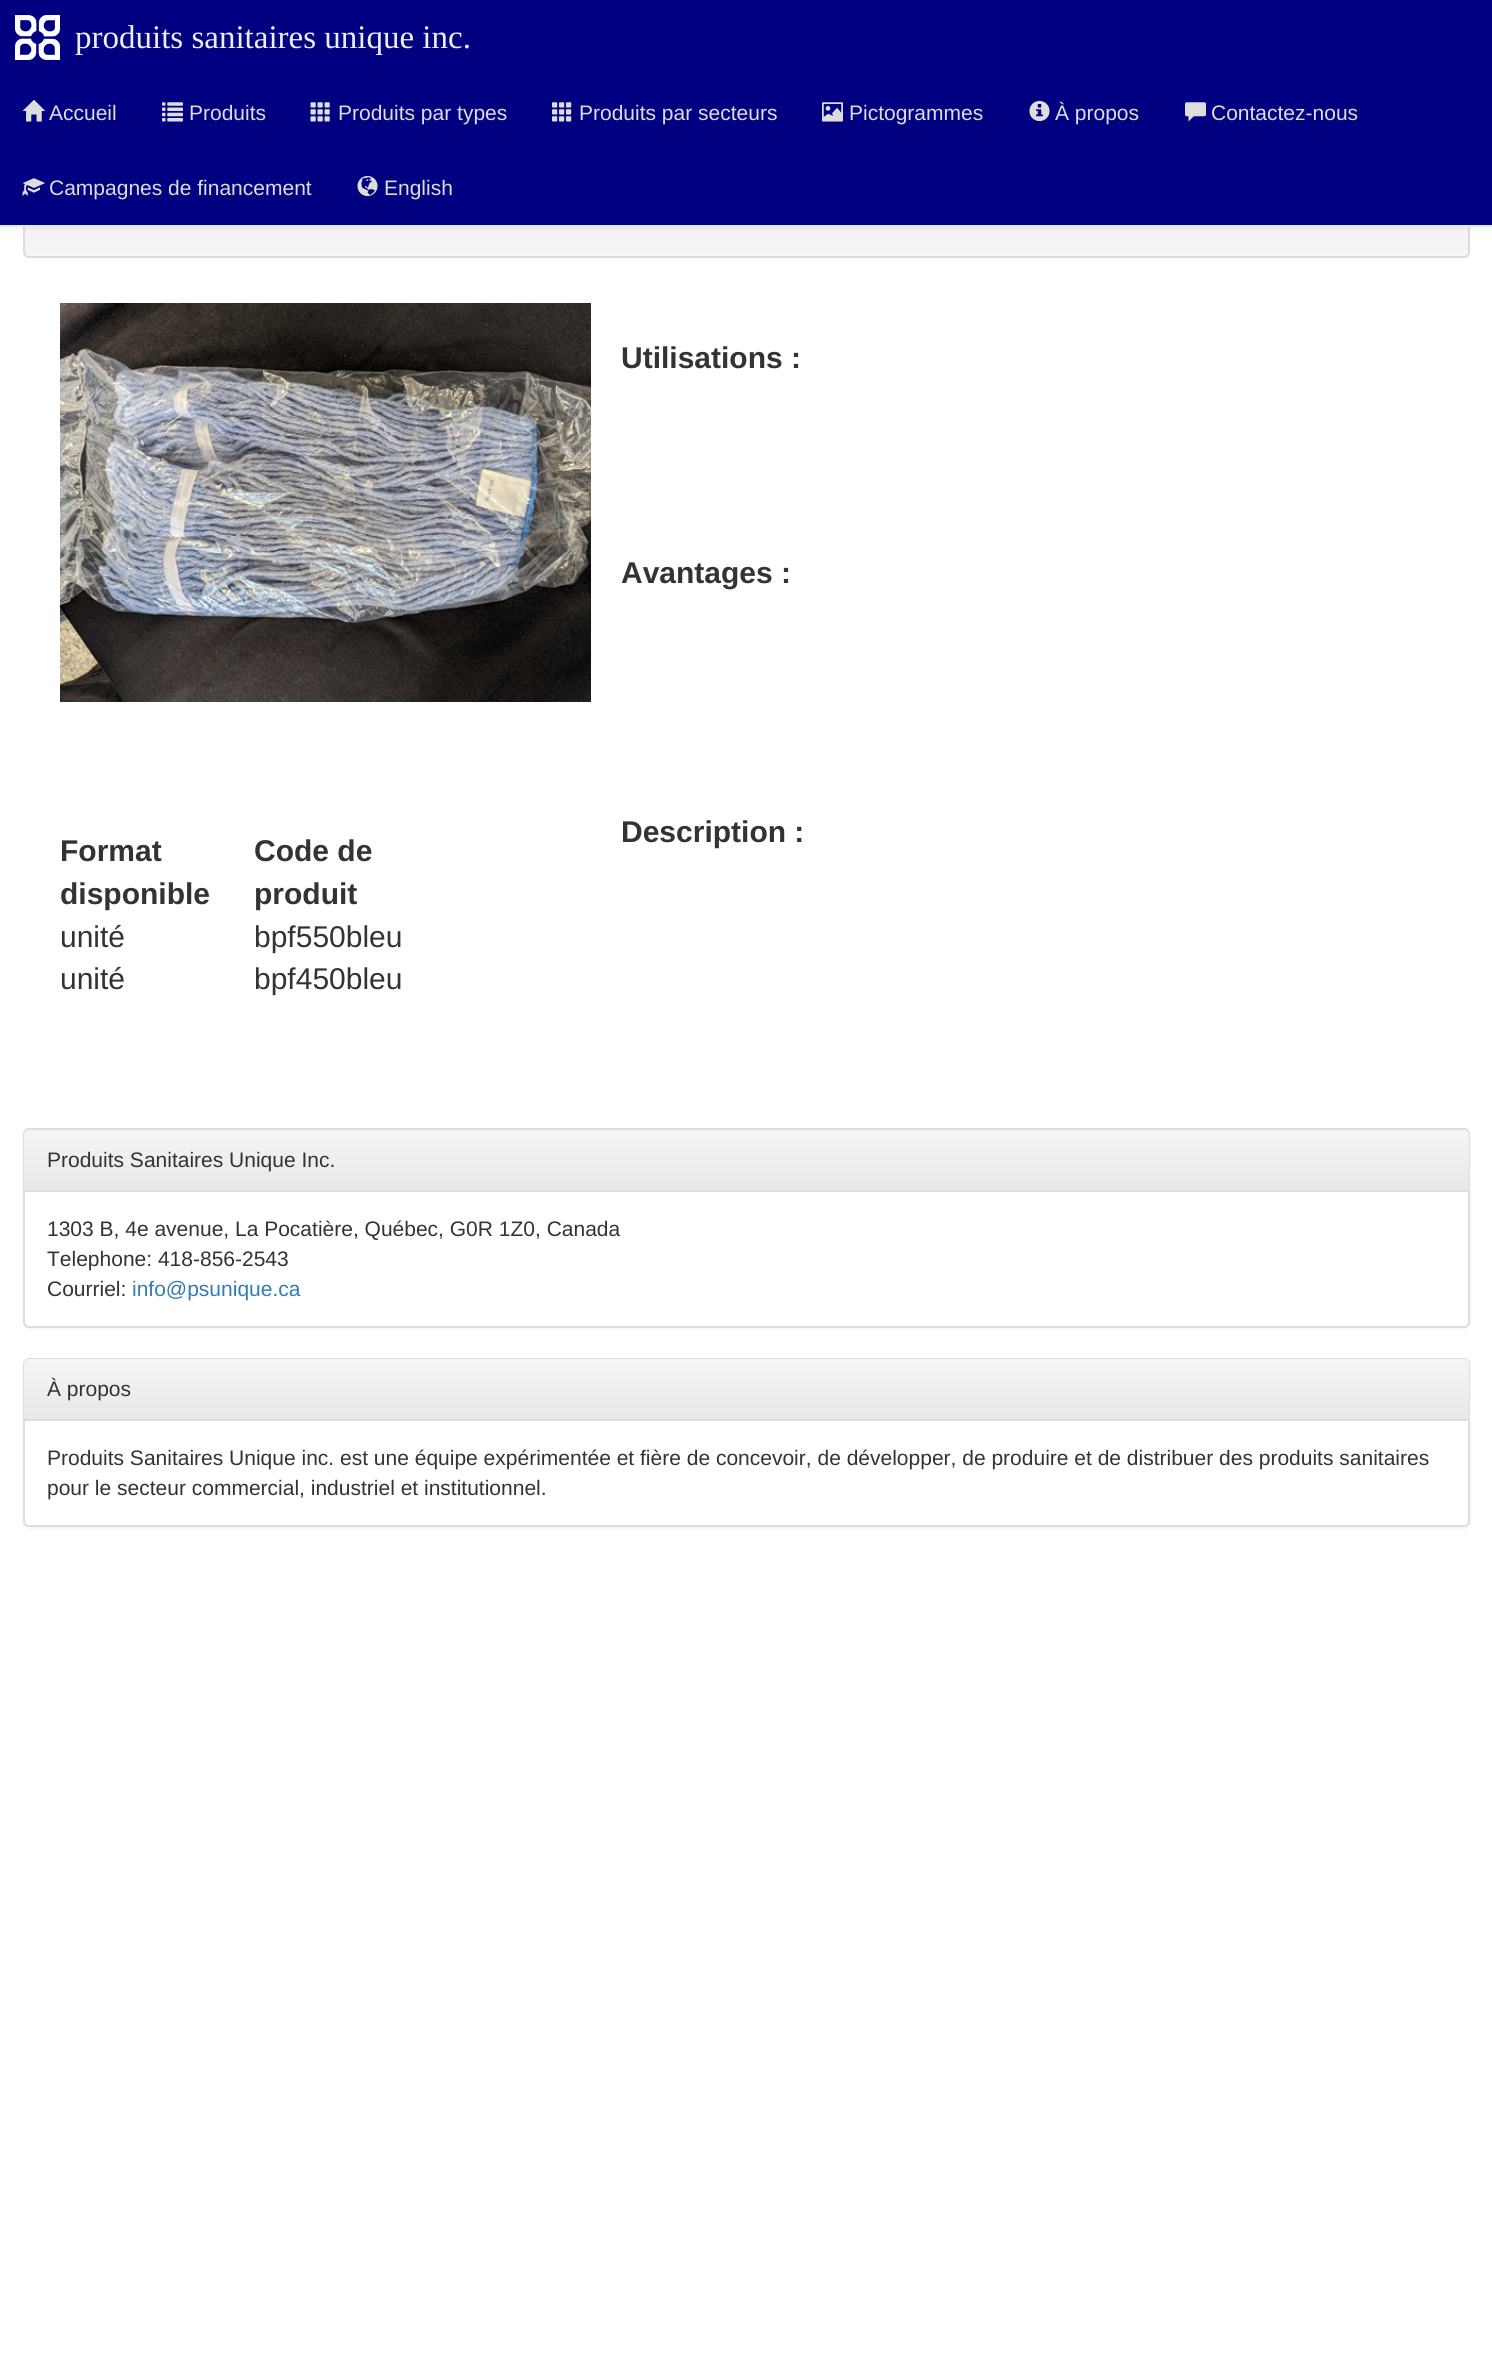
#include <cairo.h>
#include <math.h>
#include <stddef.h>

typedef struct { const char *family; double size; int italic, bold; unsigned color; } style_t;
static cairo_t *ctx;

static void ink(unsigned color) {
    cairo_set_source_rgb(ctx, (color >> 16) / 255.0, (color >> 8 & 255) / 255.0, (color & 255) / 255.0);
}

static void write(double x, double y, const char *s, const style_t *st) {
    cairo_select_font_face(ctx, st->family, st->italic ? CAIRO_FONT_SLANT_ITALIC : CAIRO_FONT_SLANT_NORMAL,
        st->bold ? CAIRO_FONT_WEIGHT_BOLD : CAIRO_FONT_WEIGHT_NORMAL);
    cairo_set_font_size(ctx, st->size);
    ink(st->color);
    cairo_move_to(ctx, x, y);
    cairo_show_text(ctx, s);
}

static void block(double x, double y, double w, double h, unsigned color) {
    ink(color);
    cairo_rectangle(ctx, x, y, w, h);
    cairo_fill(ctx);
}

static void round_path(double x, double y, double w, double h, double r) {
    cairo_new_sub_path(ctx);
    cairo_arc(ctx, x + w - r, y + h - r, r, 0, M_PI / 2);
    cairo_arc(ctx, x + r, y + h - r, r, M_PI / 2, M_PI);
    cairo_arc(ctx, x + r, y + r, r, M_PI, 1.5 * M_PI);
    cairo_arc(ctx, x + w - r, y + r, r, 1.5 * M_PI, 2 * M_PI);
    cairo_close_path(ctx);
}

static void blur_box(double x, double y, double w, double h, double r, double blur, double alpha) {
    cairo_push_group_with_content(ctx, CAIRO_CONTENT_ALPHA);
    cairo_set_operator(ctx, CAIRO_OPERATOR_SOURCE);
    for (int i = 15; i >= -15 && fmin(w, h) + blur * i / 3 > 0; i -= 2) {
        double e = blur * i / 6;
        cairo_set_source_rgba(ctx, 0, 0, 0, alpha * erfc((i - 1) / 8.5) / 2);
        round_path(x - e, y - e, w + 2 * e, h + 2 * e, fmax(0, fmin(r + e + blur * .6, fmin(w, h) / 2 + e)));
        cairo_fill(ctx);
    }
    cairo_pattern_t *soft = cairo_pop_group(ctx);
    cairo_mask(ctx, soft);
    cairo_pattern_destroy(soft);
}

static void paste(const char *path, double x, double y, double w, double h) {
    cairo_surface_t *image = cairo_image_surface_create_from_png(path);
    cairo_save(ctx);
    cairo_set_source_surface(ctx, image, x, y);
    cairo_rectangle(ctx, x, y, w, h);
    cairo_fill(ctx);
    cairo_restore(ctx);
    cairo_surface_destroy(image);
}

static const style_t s1 = {"Liberation Serif", 33, 0, 0, 0xeeeeee};
static const style_t s2 = {"Liberation Sans", 21, 0, 0, 0xdddddd};
static const style_t s3 = {"Liberation Sans", 30, 0, 1, 0x333333};
static const style_t s4 = {"Liberation Sans", 30, 0, 0, 0x333333};
static const style_t s5 = {"Liberation Sans", 21, 0, 0, 0x333333};
static const style_t s6 = {"Liberation Sans", 21, 0, 0, 0x337ab7};

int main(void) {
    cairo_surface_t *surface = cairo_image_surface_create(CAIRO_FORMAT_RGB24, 1492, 2373);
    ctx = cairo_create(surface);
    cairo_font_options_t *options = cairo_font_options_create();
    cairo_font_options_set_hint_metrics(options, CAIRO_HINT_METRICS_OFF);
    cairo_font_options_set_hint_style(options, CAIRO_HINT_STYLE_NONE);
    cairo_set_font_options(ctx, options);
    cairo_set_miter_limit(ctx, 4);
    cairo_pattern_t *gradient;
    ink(0xffffff);
    cairo_paint(ctx);
    cairo_save(ctx);
    round_path(23, 113, 1447, 145, 6);
    cairo_clip(ctx);
    gradient = cairo_pattern_create_linear(746, 114, 746, 257);
    cairo_pattern_add_color_stop_rgba(gradient, 0, 0.91, 0.91, 0.91, 1);
    cairo_pattern_add_color_stop_rgba(gradient, 1, 0.961, 0.961, 0.961, 1);
    cairo_set_source(ctx, gradient);
    cairo_pattern_destroy(gradient);
    cairo_rectangle(ctx, 23, 227, 1447, 30);
    cairo_fill(ctx);
    cairo_restore(ctx);
    round_path(24, 114, 1445, 143, 5);
    ink(0xdcdcdc);
    cairo_stroke(ctx);
    ink(0x000000);
    blur_box(0, 2, 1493, 226, 0, 4, 0.07);
    block(0, 225, 1492, 2, 0xe7e7e7);
    block(0, 0, 1492, 225, 0x000080);
    paste("pic1.png", 15, 15, 45, 45);
    write(75, 48, "produits sanitaires unique inc.", &s1);
    paste("pic2.png", 22, 100, 23, 22);
    write(49, 120, "Accueil", &s2);
    paste("pic3.png", 162, 102, 21, 20);
    write(189, 120, "Produits", &s2);
    paste("pic4.png", 310, 102, 20, 20);
    write(338, 120, "Produits par types", &s2);
    paste("pic5.png", 552, 102, 20, 20);
    write(579, 120, "Produits par secteurs", &s2);
    paste("pic6.png", 822, 102, 21, 20);
    write(849, 120, "Pictogrammes", &s2);
    paste("pic7.png", 1029, 100, 21, 22);
    write(1055, 120, "À propos", &s2);
    paste("pic8.png", 1185, 102, 21, 20);
    write(1211, 120, "Contactez-nous", &s2);
    paste("pic9.png", 22, 178, 23, 18);
    write(49, 195, "Campagnes de financement", &s2);
    paste("pic10.png", 357, 175, 21, 22);
    write(384, 195, "English", &s2);
    write(621, 368, "Utilisations :", &s3);
    paste("pic11.png", 60, 303, 531, 399);
    write(60, 861, "Format", &s3);
    write(60, 904, "disponible", &s3);
    write(254, 861, "Code de", &s3);
    write(254, 904, "produit", &s3);
    write(60, 947, "unité", &s4);
    write(254, 947, "bpf550bleu", &s4);
    write(60, 989, "unité", &s4);
    write(254, 989, "bpf450bleu", &s4);
    write(621, 583, "Avantages :", &s3);
    write(621, 842, "Description :", &s3);
    ink(0x000000);
    blur_box(23, 1130, 1447, 199, 6, 1.5, 0.05);
    ink(0xffffff);
    round_path(24, 1129, 1445, 198, 5);
    cairo_fill_preserve(ctx);
    ink(0xdddddd);
    cairo_stroke(ctx);
    gradient = cairo_pattern_create_linear(746, 1129, 746, 1190);
    cairo_pattern_add_color_stop_rgba(gradient, 0, 0.961, 0.961, 0.961, 1);
    cairo_pattern_add_color_stop_rgba(gradient, 1, 0.91, 0.91, 0.91, 1);
    cairo_set_source(ctx, gradient);
    cairo_pattern_destroy(gradient);
    cairo_new_path(ctx);
    cairo_move_to(ctx, 29, 1130);
    cairo_line_to(ctx, 1464, 1130);
    cairo_curve_to(ctx, 1467, 1130, 1469, 1132, 1469, 1135);
    cairo_line_to(ctx, 1469, 1190);
    cairo_line_to(ctx, 24, 1190);
    cairo_line_to(ctx, 24, 1135);
    cairo_curve_to(ctx, 24, 1132, 26, 1130, 29, 1130);
    cairo_close_path(ctx);
    cairo_fill(ctx);
    block(24, 1190, 1445, 2, 0xdddddd);
    write(47, 1167, "Produits Sanitaires Unique Inc.", &s5);
    write(47, 1236, "1303 B, 4e avenue, La Pocatière, Québec, G0R 1Z0, Canada", &s5);
    write(47, 1266, "Telephone: 418-856-2543", &s5);
    write(47, 1296, "Courriel:", &s5);
    write(132, 1296, "info@psunique.ca", &s6);
    ink(0x000000);
    blur_box(23, 1359, 1447, 170, 6, 1.5, 0.05);
    ink(0xffffff);
    round_path(24, 1359, 1445, 167, 5);
    cairo_fill_preserve(ctx);
    ink(0xdddddd);
    cairo_stroke(ctx);
    gradient = cairo_pattern_create_linear(746, 1359, 746, 1419);
    cairo_pattern_add_color_stop_rgba(gradient, 0, 0.961, 0.961, 0.961, 1);
    cairo_pattern_add_color_stop_rgba(gradient, 1, 0.91, 0.91, 0.91, 1);
    cairo_set_source(ctx, gradient);
    cairo_pattern_destroy(gradient);
    cairo_new_path(ctx);
    cairo_move_to(ctx, 29, 1359);
    cairo_line_to(ctx, 1464, 1359);
    cairo_curve_to(ctx, 1467, 1359, 1469, 1361, 1469, 1364);
    cairo_line_to(ctx, 1469, 1419);
    cairo_line_to(ctx, 24, 1419);
    cairo_line_to(ctx, 24, 1364);
    cairo_curve_to(ctx, 24, 1361, 26, 1359, 29, 1359);
    cairo_close_path(ctx);
    cairo_fill(ctx);
    block(24, 1419, 1445, 2, 0xdddddd);
    write(47, 1396, "À propos", &s5);
    write(47, 1465, "Produits Sanitaires Unique inc. est une équipe expérimentée et fière de concevoir, de développer, de produire et de distribuer des produits sanitaires", &s5);
    write(47, 1495, "pour le secteur commercial, industriel et institutionnel.", &s5);
    cairo_surface_write_to_png(surface, "screenshot.png");
    cairo_font_options_destroy(options);
    cairo_destroy(ctx);
    cairo_surface_destroy(surface);
    return 0;
}
